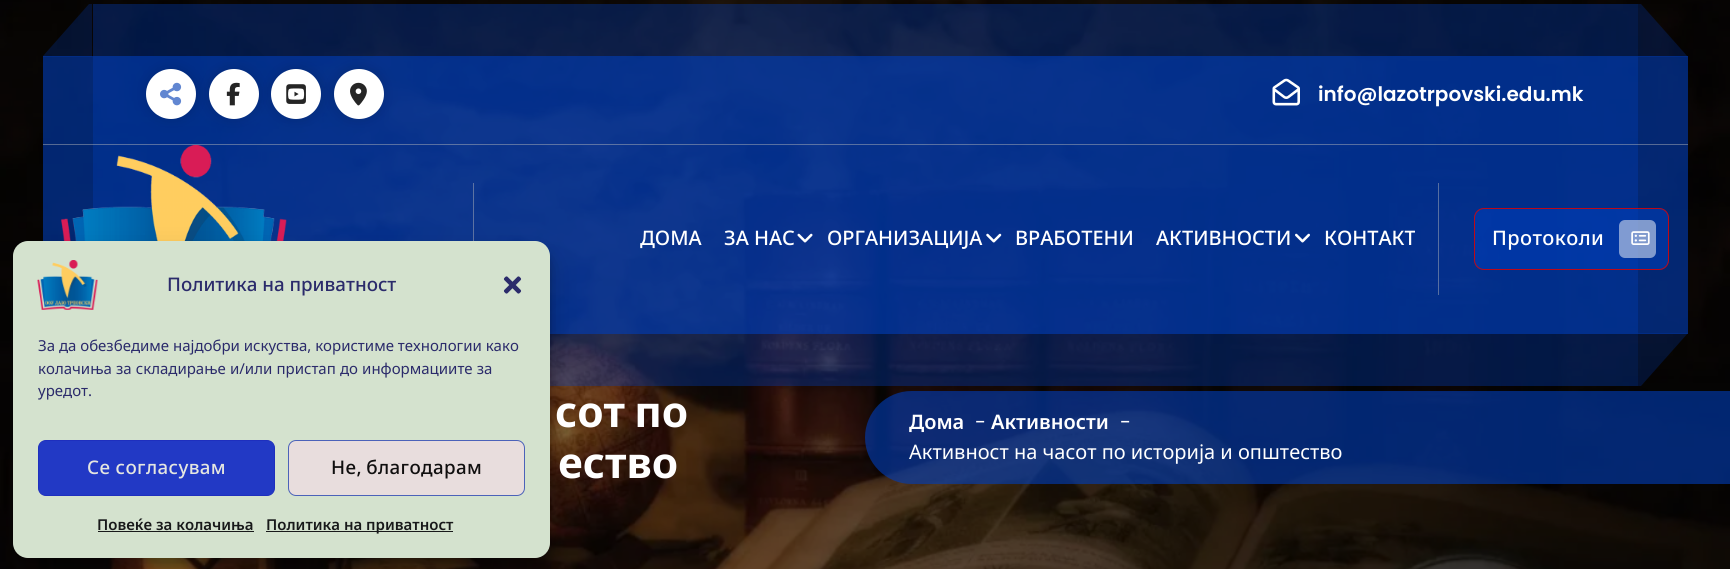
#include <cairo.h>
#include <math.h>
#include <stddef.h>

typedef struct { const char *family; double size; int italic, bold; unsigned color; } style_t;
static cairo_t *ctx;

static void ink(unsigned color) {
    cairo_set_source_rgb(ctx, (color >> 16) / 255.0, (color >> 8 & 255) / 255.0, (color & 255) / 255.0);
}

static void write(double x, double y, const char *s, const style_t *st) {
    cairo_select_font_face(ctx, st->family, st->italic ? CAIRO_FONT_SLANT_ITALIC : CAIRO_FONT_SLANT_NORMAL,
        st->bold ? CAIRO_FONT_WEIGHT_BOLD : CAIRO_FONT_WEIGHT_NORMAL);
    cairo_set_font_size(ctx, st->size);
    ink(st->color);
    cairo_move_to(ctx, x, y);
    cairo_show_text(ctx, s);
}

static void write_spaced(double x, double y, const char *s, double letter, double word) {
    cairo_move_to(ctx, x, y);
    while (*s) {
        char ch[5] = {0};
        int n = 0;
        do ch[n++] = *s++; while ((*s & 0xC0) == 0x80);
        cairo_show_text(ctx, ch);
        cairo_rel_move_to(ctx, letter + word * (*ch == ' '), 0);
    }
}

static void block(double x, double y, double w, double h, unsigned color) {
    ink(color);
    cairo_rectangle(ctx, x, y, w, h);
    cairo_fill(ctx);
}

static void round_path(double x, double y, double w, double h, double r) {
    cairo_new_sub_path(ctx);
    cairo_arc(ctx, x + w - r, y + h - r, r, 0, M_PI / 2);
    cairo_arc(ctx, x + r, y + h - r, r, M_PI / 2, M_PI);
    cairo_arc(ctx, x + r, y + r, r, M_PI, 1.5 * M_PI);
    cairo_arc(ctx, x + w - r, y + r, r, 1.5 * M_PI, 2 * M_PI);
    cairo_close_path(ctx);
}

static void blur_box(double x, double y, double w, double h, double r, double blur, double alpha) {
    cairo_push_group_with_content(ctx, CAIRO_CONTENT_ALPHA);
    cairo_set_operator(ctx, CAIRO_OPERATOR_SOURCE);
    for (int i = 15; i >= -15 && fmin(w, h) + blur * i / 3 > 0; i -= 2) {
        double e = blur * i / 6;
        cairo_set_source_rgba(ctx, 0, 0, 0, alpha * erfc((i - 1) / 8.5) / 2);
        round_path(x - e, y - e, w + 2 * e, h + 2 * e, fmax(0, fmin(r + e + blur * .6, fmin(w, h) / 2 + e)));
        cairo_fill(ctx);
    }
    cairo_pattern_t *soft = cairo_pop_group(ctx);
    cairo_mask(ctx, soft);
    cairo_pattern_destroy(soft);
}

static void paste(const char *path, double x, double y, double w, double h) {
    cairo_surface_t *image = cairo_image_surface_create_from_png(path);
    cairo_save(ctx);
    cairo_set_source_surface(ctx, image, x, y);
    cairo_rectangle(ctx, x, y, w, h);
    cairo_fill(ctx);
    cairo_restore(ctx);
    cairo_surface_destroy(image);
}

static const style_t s1 = {"Noto Sans Medium", 18.75, 0, 0, 0x2b2b6b};
static const style_t s2 = {"Noto Sans", 15, 0, 0, 0x2b2b6b};
static const style_t s3 = {"Noto Sans SemiBold", 15, 0, 0, 0x18191a};
static const style_t s4 = {"Poppins SemiBold", 20, 0, 0, 0xffffff};
static const style_t s5 = {"Noto Sans Medium", 20, 0, 0, 0xffffff};
static const style_t s6 = {"Noto Sans SemiBold", 20, 0, 0, 0xffffff};
static const style_t s7 = {"Poppins", 20, 0, 0, 0xffffff};
static const style_t s8 = {"Noto Sans", 20, 0, 0, 0xffffff};

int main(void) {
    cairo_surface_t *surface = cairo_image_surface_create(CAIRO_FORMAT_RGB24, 1730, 569);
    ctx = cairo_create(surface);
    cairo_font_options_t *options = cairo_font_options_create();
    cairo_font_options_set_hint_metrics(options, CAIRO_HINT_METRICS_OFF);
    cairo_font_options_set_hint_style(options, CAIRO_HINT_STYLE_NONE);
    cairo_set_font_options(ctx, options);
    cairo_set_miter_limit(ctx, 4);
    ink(0xffffff);
    cairo_paint(ctx);
    paste("pic13.png", 0, 0, 1730, 569);
    cairo_set_source_rgba(ctx, 0, 0.235, 0.71, 0.62);
    cairo_rectangle(ctx, 43, 56, 1645, 278);
    cairo_fill(ctx);
    cairo_set_source_rgba(ctx, 0, 0.235, 0.71, 0.37);
    cairo_rectangle(ctx, 93, 4, 1545, 382);
    cairo_fill(ctx);
    paste("pic8.png", 61, 145, 226, 96);
    cairo_set_source_rgba(ctx, 0.741, 0.741, 0.741, 0.45);
    cairo_rectangle(ctx, 473, 183, 1, 58);
    cairo_fill(ctx);
    ink(0x000000);
    blur_box(13, 249, 537, 316, 15, 4, 0.23);
    blur_box(13, 254, 537, 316, 15, 12.5, 0.19);
    ink(0xd4e2ce);
    round_path(13, 241, 537, 317, 15);
    cairo_fill(ctx);
    paste("pic1.png", 37, 260, 61, 50);
    write(167, 291, "Политика на приватност", &s1);
    paste("pic2.png", 503, 276, 19, 18);
    write(38, 351, "За да обезбедиме најдобри искуства, користиме технологии како", &s2);
    write_spaced(38, 374, "колачиња за складирање и/или пристап до информациите за", 0, 0.25);
    cairo_save(ctx);
    cairo_rectangle(ctx, 38, 335, 487, 80);
    cairo_clip(ctx);
    write(38, 396, "уредот.", &s2);
    cairo_restore(ctx);
    ink(0x2239c5);
    round_path(38.5, 440.5, 236, 55, 7.5);
    cairo_fill_preserve(ctx);
    ink(0x1e2fbe);
    cairo_set_line_width(ctx, 1);
    cairo_stroke(ctx);
    cairo_select_font_face(ctx, "Noto Sans Medium", CAIRO_FONT_SLANT_NORMAL, CAIRO_FONT_WEIGHT_NORMAL);
    cairo_set_font_size(ctx, 18.75);
    ink(0xe5e6e0);
    write_spaced(87, 474, "Се согласувам", 0.4, 0);
    ink(0xe8dddd);
    round_path(288.5, 440.5, 236, 55, 7.5);
    cairo_fill_preserve(ctx);
    ink(0x4b62b9);
    cairo_stroke(ctx);
    ink(0x100f0f);
    write_spaced(331, 474, "Не, благодарам", 0.4, -1);
    write(97, 530, "Повеќе за колачиња", &s3);
    block(98, 531, 156, 1, 0x18191a);
    block(266, 531, 187, 1, 0x18191a);
    write(266, 530, "Политика на приватност", &s3);
    cairo_set_source_rgba(ctx, 0, 0.235, 0.71, 0.26);
    cairo_new_path(ctx);
    cairo_move_to(ctx, 43, 56);
    cairo_line_to(ctx, 89, 4);
    cairo_line_to(ctx, 92, 4);
    cairo_line_to(ctx, 92, 57);
    cairo_line_to(ctx, 43, 57);
    cairo_close_path(ctx);
    cairo_fill(ctx);
    cairo_new_path(ctx);
    cairo_move_to(ctx, 1638, 333);
    cairo_line_to(ctx, 1688, 333);
    cairo_line_to(ctx, 1641, 386);
    cairo_line_to(ctx, 1638, 386);
    cairo_close_path(ctx);
    cairo_fill(ctx);
    cairo_new_path(ctx);
    cairo_move_to(ctx, 1638, 4);
    cairo_line_to(ctx, 1641, 4);
    cairo_line_to(ctx, 1688, 57);
    cairo_line_to(ctx, 1638, 57);
    cairo_close_path(ctx);
    cairo_fill(ctx);
    cairo_set_source_rgba(ctx, 0.741, 0.741, 0.741, 0.45);
    cairo_rectangle(ctx, 43, 144, 1645, 1);
    cairo_fill(ctx);
    ink(0x000000);
    blur_box(149, 71, 45, 45, 22.5, 8, 0.2);
    ink(0xffffff);
    cairo_arc(ctx, 171, 94, 25, 0, 2 * M_PI);
    cairo_fill(ctx);
    paste("pic3.png", 160, 82, 22, 24);
    ink(0x000000);
    blur_box(211, 71, 45, 45, 22.5, 8, 0.2);
    ink(0xffffff);
    cairo_arc(ctx, 234, 94, 25, 0, 2 * M_PI);
    cairo_fill(ctx);
    paste("pic4.png", 226, 82, 14, 24);
    ink(0x000000);
    blur_box(274, 71, 45, 45, 22.5, 8, 0.2);
    ink(0xffffff);
    cairo_arc(ctx, 296, 94, 25, 0, 2 * M_PI);
    cairo_fill(ctx);
    paste("pic5.png", 286, 84, 20, 20);
    ink(0x000000);
    blur_box(336, 71, 45, 45, 22.5, 8, 0.2);
    ink(0xffffff);
    cairo_arc(ctx, 359, 94, 25, 0, 2 * M_PI);
    cairo_fill(ctx);
    paste("pic6.png", 350, 82, 17, 24);
    paste("pic7.png", 1272, 78, 28, 28);
    write(1318, 101, "info@lazotrpovski.edu.mk", &s4);
    write(640, 245, "ДОМА", &s5);
    write(724, 245, "ЗА НАС", &s5);
    paste("pic9.png", 797, 233, 16, 10);
    write(827, 245, "ОРГАНИЗАЦИЈА", &s5);
    paste("pic10.png", 986, 233, 16, 10);
    write(1015, 245, "ВРАБОТЕНИ", &s5);
    write(1156, 245, "АКТИВНОСТИ", &s5);
    paste("pic11.png", 1295, 233, 15, 10);
    write(1324, 245, "КОНТАКТ", &s5);
    cairo_set_source_rgba(ctx, 0.741, 0.741, 0.741, 0.45);
    cairo_rectangle(ctx, 1438, 183, 1, 112);
    cairo_fill(ctx);
    cairo_set_source_rgba(ctx, 0, 0.235, 0.71, 0.62);
    round_path(1474, 208, 195, 62, 10);
    cairo_fill(ctx);
    round_path(1474.5, 208.5, 194, 61, 9.5);
    cairo_set_source_rgba(ctx, 0.867, 0.008, 0.008, 0.86);
    cairo_stroke(ctx);
    ink(0xffffff);
    write_spaced(1492, 245, "Протоколи", 0.4, 0);
    cairo_set_source_rgba(ctx, 1, 1, 1, 0.5);
    round_path(1619, 220, 37, 38, 6);
    cairo_fill(ctx);
    paste("pic12.png", 1631, 231, 19, 14);
    cairo_select_font_face(ctx, "Noto Sans", CAIRO_FONT_SLANT_NORMAL, CAIRO_FONT_WEIGHT_BOLD);
    cairo_set_font_size(ctx, 42.5);
    ink(0xffffff);
    write_spaced(555, 427, "сот по", 0, -2);
    write_spaced(558, 478, "ество", 0, -2);
    cairo_set_source_rgba(ctx, 0, 0.235, 0.71, 0.62);
    cairo_new_path(ctx);
    cairo_move_to(ctx, 911.5, 391);
    cairo_line_to(ctx, 1730, 391);
    cairo_line_to(ctx, 1730, 484);
    cairo_line_to(ctx, 911.5, 484);
    cairo_curve_to(ctx, 886, 484, 865, 463, 865, 437.5);
    cairo_curve_to(ctx, 865, 412, 886, 391, 911.5, 391);
    cairo_close_path(ctx);
    cairo_fill(ctx);
    write(909, 429, "Дома", &s6);
    write(975, 429, "-", &s7);
    write(991, 429, "Активности", &s6);
    write(1120, 429, "-", &s7);
    write(909, 459, "Активност на часот по историја и општество", &s8);
    cairo_surface_write_to_png(surface, "screenshot.png");
    cairo_font_options_destroy(options);
    cairo_destroy(ctx);
    cairo_surface_destroy(surface);
    return 0;
}
